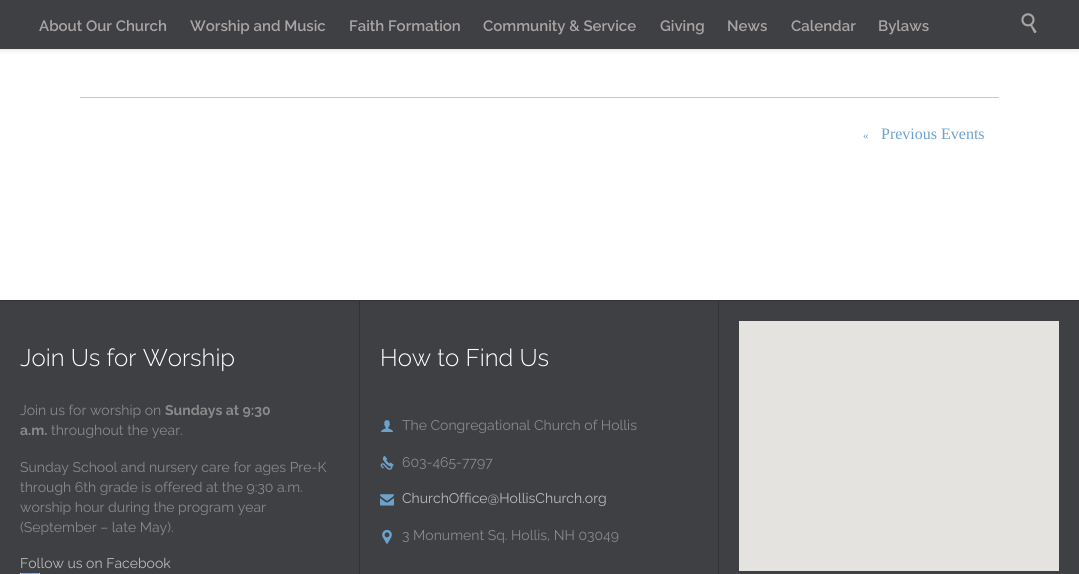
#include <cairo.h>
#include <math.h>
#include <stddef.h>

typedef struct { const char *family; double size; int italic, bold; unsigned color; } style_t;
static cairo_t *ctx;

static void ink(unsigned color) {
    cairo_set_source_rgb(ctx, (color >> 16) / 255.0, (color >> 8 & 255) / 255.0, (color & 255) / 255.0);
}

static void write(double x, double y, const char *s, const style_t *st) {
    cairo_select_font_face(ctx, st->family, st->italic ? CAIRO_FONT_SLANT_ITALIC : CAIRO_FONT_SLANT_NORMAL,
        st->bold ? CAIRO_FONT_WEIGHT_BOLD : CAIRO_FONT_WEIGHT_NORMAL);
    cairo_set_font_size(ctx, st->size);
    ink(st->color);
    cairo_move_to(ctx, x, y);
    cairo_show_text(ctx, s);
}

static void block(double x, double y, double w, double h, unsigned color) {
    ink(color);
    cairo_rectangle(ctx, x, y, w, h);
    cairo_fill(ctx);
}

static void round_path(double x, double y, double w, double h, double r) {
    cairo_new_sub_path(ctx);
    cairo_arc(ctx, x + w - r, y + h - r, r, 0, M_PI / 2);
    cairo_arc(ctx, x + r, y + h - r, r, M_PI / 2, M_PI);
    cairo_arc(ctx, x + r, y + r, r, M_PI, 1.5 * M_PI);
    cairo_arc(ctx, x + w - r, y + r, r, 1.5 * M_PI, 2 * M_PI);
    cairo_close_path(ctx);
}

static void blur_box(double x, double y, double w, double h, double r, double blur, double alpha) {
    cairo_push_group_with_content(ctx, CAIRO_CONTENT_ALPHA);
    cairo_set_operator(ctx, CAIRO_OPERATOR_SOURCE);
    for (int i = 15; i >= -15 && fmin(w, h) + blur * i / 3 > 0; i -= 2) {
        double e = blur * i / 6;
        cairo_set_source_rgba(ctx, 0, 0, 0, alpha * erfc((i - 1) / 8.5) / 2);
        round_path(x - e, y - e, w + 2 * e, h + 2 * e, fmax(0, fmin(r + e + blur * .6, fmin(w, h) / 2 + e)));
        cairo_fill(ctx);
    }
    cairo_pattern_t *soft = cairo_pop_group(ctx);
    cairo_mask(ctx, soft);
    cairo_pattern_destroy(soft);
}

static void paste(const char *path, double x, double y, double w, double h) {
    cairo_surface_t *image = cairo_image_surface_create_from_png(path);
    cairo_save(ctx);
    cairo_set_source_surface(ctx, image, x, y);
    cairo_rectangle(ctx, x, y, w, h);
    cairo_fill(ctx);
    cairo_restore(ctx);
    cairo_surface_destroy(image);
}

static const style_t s1 = {"Raleway SemiBold", 15, 0, 0, 0xaaa4a4};
static const style_t s2 = {"Liberation Serif", 11, 0, 0, 0x6ca2cb};
static const style_t s3 = {"Liberation Serif", 16, 0, 0, 0x6ca2cb};
static const style_t s4 = {"Raleway Light", 24, 0, 0, 0xffffff};
static const style_t s5 = {"Raleway", 14, 0, 0, 0x898989};
static const style_t s6 = {"Raleway", 14, 0, 1, 0x898989};
static const style_t s7 = {"Raleway", 14, 0, 0, 0xbdb9b9};

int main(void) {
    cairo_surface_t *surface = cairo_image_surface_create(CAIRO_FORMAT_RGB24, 1079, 574);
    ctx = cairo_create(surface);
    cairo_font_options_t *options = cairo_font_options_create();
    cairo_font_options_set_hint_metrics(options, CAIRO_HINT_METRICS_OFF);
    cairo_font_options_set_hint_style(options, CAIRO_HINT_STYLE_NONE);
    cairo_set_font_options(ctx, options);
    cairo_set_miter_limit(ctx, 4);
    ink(0xffffff);
    cairo_paint(ctx);
    ink(0x000000);
    blur_box(0, -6, 1079, 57, 0, 2, 0.09);
    block(0, 0, 1079, 49, 0x3e4043);
    write(39, 31, "About Our Church", &s1);
    write(190, 31, "Worship and Music", &s1);
    write(349, 31, "Faith Formation", &s1);
    write(483, 31, "Community & Service", &s1);
    write(660, 31, "Giving", &s1);
    write(727, 31, "News", &s1);
    write(791, 31, "Calendar", &s1);
    write(878, 31, "Bylaws", &s1);
    paste("pic1.png", 1021, 13, 16, 21);
    block(80, 97, 919, 1, 0xc1c8d6);
    write(863, 139, "«", &s2);
    write(881, 139, "Previous Events", &s3);
    block(0, 301, 1079, 273, 0x3e4043);
    block(0, 300, 1079, 1, 0x323336);
    block(359, 301, 1, 273, 0x323336);
    write(20, 366, "Join Us for Worship", &s4);
    write(20, 415, "Join us for worship on", &s5);
    write(165, 415, "Sundays at 9:30", &s6);
    write(20, 435, "a.m.", &s6);
    write(51, 435, "throughout the year.", &s5);
    write(20, 472, "Sunday School and nursery care for ages Pre-K", &s5);
    write(20, 492, "through 6th grade is offered at the 9:30 a.m.", &s5);
    write(20, 512, "worship hour during the program year", &s5);
    write(20, 532, "(September – late May).", &s5);
    write(20, 568, "Follow us on Facebook", &s7);
    paste("pic2.png", 20, 573, 20, 1);
    block(718, 301, 1, 273, 0x323336);
    write(380, 366, "How to Find Us", &s4);
    paste("pic3.png", 381, 420, 12, 12);
    write(402, 430, "The Congregational Church of Hollis", &s5);
    paste("pic4.png", 380, 455, 14, 15);
    write(402, 467, "603-465-7797", &s5);
    paste("pic5.png", 380, 494, 14, 12);
    write(402, 503, "ChurchOffice@HollisChurch.org", &s7);
    paste("pic6.png", 382, 529, 10, 15);
    write(402, 540, "3 Monument Sq. Hollis, NH 03049", &s5);
    block(739, 321, 320, 250, 0xe5e3df);
    cairo_surface_write_to_png(surface, "screenshot.png");
    cairo_font_options_destroy(options);
    cairo_destroy(ctx);
    cairo_surface_destroy(surface);
    return 0;
}
